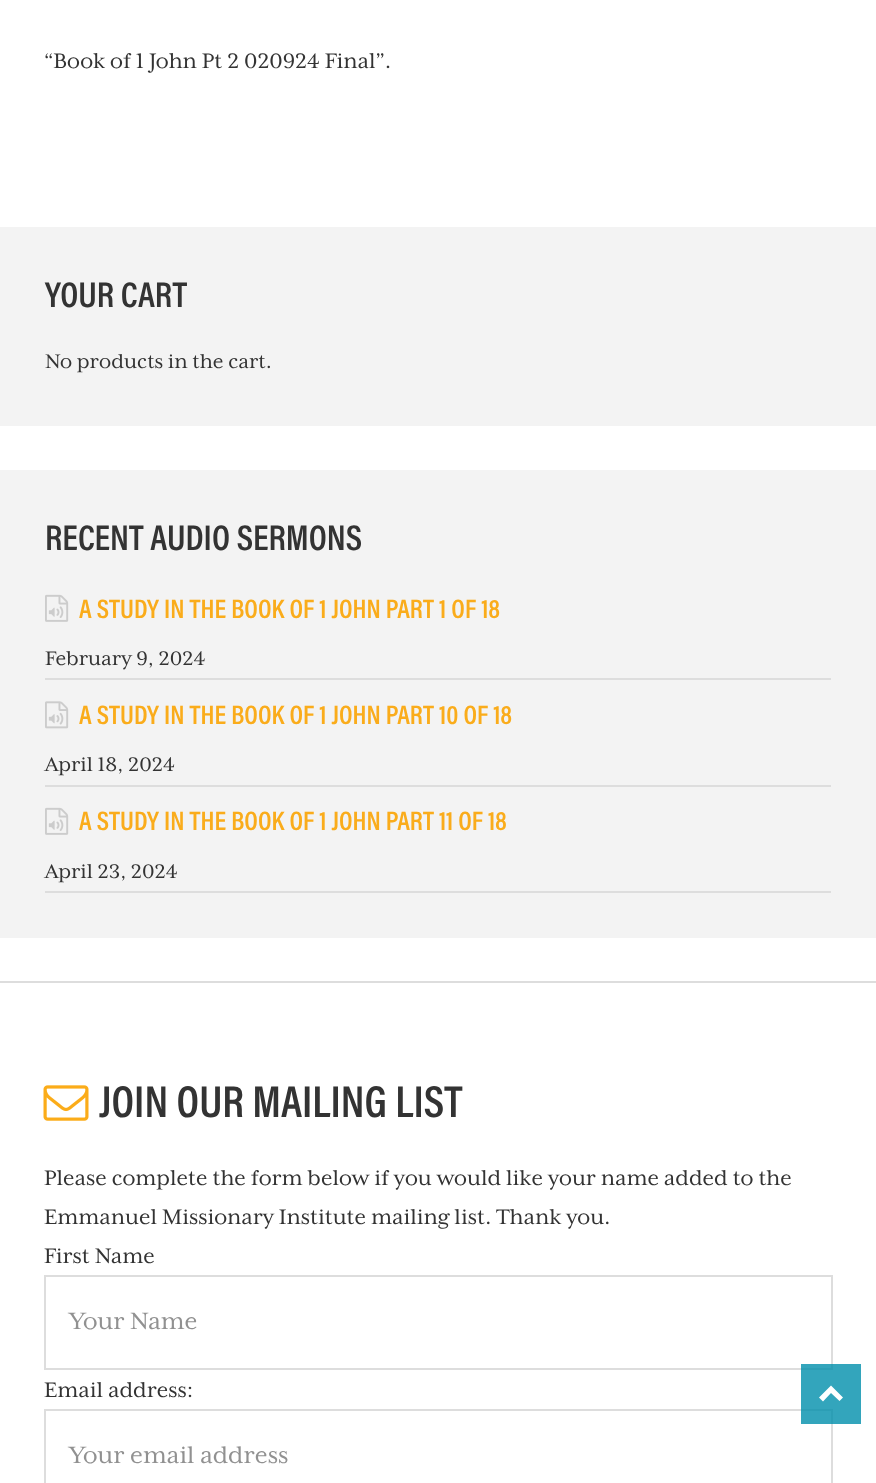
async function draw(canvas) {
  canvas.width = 876;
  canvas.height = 1483;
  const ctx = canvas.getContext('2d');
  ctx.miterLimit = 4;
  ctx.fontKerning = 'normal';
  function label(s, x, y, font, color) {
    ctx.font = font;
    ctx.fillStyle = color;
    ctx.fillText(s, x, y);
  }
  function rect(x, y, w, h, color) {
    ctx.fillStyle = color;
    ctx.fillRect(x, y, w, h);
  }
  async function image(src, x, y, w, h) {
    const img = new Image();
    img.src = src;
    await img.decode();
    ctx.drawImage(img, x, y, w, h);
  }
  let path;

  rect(0, 0, 876, 1483, '#fff');
  label('“Book of 1 John Pt 2 020924 Final”.', 44, 68, '24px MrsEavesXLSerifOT', '#333');
  rect(0, 227, 876, 199, '#f3f3f3');
  label('YOUR CART', 45, 307, '600 36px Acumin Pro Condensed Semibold', '#333');
  label('No products in the cart.', 45, 368, '22.5px MrsEavesXLSerifOT', '#333');
  rect(0, 470, 876, 468, '#f3f3f3');
  label('RECENT AUDIO SERMONS', 45, 550, '600 36px Acumin Pro Condensed Semibold', '#333');
  rect(45, 678, 786, 2, '#ddd');
  await image('assets/img1.png', 45, 594, 24, 28);
  label('A STUDY IN THE BOOK OF 1 JOHN PART 1 OF 18', 79, 618, '600 27px Acumin Pro Condensed Semibold', '#faac1b');
  label('February 9, 2024', 45, 665, '22.5px MrsEavesXLSerifOT', '#333');
  rect(45, 785, 786, 2, '#ddd');
  await image('assets/img2.png', 45, 701, 24, 28);
  label('A STUDY IN THE BOOK OF 1 JOHN PART 10 OF 18', 79, 724, '600 27px Acumin Pro Condensed Semibold', '#faac1b');
  label('April 18, 2024', 45, 771, '22.5px MrsEavesXLSerifOT', '#333');
  rect(45, 891, 786, 2, '#ddd');
  await image('assets/img1.png', 45, 807, 24, 28);
  label('A STUDY IN THE BOOK OF 1 JOHN PART 11 OF 18', 79, 830, '600 27px Acumin Pro Condensed Semibold', '#faac1b');
  label('April 23, 2024', 45, 878, '22.5px MrsEavesXLSerifOT', '#333');
  rect(0, 981, 876, 2, '#ddd');
  await image('assets/img3.png', 43, 1085, 46, 36);
  label('JOIN OUR MAILING LIST', 99, 1117, '600 45px Acumin Pro Condensed Semibold', '#333');
  label('Please complete the form below if you would like your name added to the', 44, 1185, '24px MrsEavesXLSerifOT', '#333');
  label('Emmanuel Missionary Institute mailing list. Thank you.', 44, 1224, '24px MrsEavesXLSerifOT', '#333');
  label('First Name', 44, 1263, '24px MrsEavesXLSerifOT', '#333');
  ctx.strokeStyle = '#ddd';
  ctx.lineWidth = 2;
  ctx.strokeRect(45, 1276, 787, 93);
  label('Your Name', 69, 1329, '27px MrsEavesXLSerifOT', '#919191');
  label('Email address:', 44, 1397, '24px MrsEavesXLSerifOT', '#333');
  ctx.strokeRect(45, 1410, 787, 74);
  label('Your email address', 69, 1463, '27px MrsEavesXLSerifOT', '#919191');
  rect(801, 1364, 60, 60, '#008eabcc');
  ctx.fillStyle = '#fff';
  path = new Path2D('M831 1385.5L843 1397.5L839.5 1401L831 1393L823 1401.5L819 1397.5Z');
  ctx.fill(path);
}

draw(document.querySelector('canvas'));
